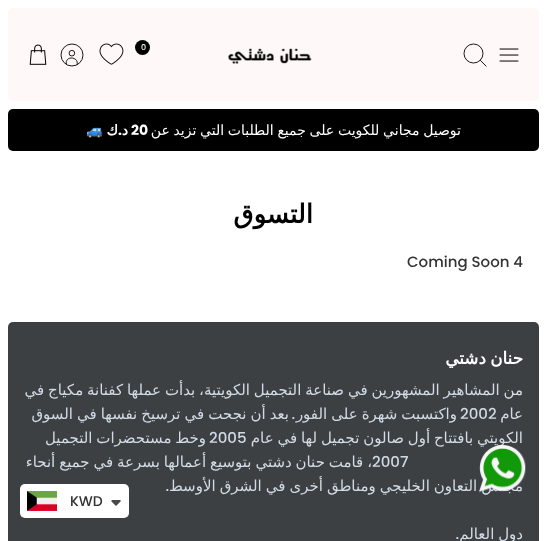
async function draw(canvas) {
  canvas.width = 547;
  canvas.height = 541;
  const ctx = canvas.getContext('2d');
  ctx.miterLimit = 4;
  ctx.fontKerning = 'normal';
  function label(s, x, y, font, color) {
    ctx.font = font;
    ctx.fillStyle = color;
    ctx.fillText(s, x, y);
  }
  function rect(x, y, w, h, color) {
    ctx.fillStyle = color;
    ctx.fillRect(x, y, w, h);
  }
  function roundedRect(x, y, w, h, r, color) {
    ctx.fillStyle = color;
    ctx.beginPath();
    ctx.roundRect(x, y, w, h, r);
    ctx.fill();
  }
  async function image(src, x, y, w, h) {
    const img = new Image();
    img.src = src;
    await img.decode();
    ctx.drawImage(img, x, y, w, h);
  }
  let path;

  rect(0, 0, 547, 541, '#fff');
  roundedRect(8, 8, 531, 93, 5, '#fff8f9');
  await image('assets/img1.png', 499, 48, 20, 14);
  ctx.beginPath();
  ctx.arc(473.5, 53.5, 9.5, 0, 2 * Math.PI);
  ctx.strokeStyle = '#000';
  ctx.lineWidth = 0.9;
  ctx.stroke();
  path = new Path2D('M480.5 60.5L486 66');
  ctx.lineCap = 'square';
  ctx.stroke(path);
  ctx.fillStyle = '#000';
  ctx.beginPath();
  ctx.arc(142.5, 47.5, 7.5, 0, 2 * Math.PI);
  ctx.fill();
  label('0', 141, 50, '500 8px Poppins', '#fff');
  await image('assets/img2.png', 99, 43, 25, 22);
  path = new Path2D('M77 65C79.5 56 64 55.5 66.5 64.5');
  ctx.lineCap = 'butt';
  ctx.stroke(path);
  ctx.beginPath();
  ctx.arc(71.9, 53.2, 2.8, 0, 2 * Math.PI);
  ctx.stroke();
  ctx.beginPath();
  ctx.arc(72, 55, 11, 0, 2 * Math.PI);
  ctx.stroke();
  await image('assets/img3.png', 29, 44, 18, 21);
  await image('assets/img4.png', 228, 48, 84, 16);
  roundedRect(8, 109, 531, 42, 5, '#000');
  ctx.wordSpacing = '-0.75px';
  ctx.direction = 'rtl';
  label('توصيل مجاني للكويت على جميع الطلبات التي تزيد عن', 461, 135, '14px DejaVu Sans', '#fff');
  ctx.wordSpacing = '0px';
  ctx.direction = 'ltr';
  label('20', 131, 135, 'bold 14px Poppins', '#fff');
  ctx.direction = 'rtl';
  label('د', 128, 135, 'bold 14px DejaVu Sans', '#fff');
  label('.', 122, 135, 'bold 14px Poppins', '#fff');
  label('ك', 118, 135, 'bold 14px DejaVu Sans', '#fff');
  ctx.direction = 'ltr';
  label('🚙', 86, 135, '14px Noto Color Emoji', '#fff');
  ctx.direction = 'rtl';
  label('التسوق', 313, 223, 'bold 26px DejaVu Sans', '#000');
  ctx.direction = 'ltr';
  label('Coming Soon 4', 407, 267, '500 15px Poppins', '#333');
  roundedRect(8, 322, 531, 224, 5, '#3c4043');
  ctx.wordSpacing = '-1px';
  ctx.direction = 'rtl';
  label('حنان دشتي', 523, 364, 'bold 16.75px DejaVu Sans', '#fff');
  ctx.wordSpacing = '-0.9px';
  label('من المشاهير المشهورين في صناعة التجميل الكويتية، بدأت عملها كفنانة مكياج في', 523, 395, '15px DejaVu Sans', '#d2dbe5');
  ctx.wordSpacing = '0px';
  label('عام', 523, 419, '15px DejaVu Sans', '#d2dbe5');
  ctx.direction = 'ltr';
  label('2002', 460, 419, '500 15px Poppins', '#d2dbe5');
  ctx.wordSpacing = '-0.75px';
  ctx.direction = 'rtl';
  label('بعد أن نجحت في ترسيخ نفسها في السوق', 289, 419, '15px DejaVu Sans', '#d2dbe5');
  ctx.wordSpacing = '0px';
  label('.', 295, 419, '500 15px Poppins', '#d2dbe5');
  ctx.wordSpacing = '-0.75px';
  label('واكتسبت شهرة على الفور', 457, 419, '15px DejaVu Sans', '#d2dbe5');
  ctx.wordSpacing = '-0.9px';
  label('الكويتي بافتتاح أول صالون تجميل لها في عام', 523, 443, '15px DejaVu Sans', '#d2dbe5');
  ctx.wordSpacing = '0px';
  ctx.direction = 'ltr';
  label('2005', 209, 443, '500 15px Poppins', '#d2dbe5');
  ctx.wordSpacing = '-1px';
  ctx.direction = 'rtl';
  label('وخط مستحضرات التجميل', 206, 443, '15px DejaVu Sans', '#d2dbe5');
  ctx.wordSpacing = '-0.9px';
  label('، قامت حنان دشتي بتوسيع أعمالها بسرعة في جميع أنحاء', 372, 467, '15px DejaVu Sans', '#d2dbe5');
  ctx.wordSpacing = '0px';
  ctx.direction = 'ltr';
  label('2007', 372, 467, '500 15px Poppins', '#d2dbe5');
  ctx.wordSpacing = '-0.75px';
  ctx.direction = 'rtl';
  label('مجلس التعاون الخليجي ومناطق أخرى في الشرق الأوسط', 523, 491, '15px DejaVu Sans', '#d2dbe5');
  ctx.wordSpacing = '0px';
  label('.', 169, 491, '500 15px Poppins', '#d2dbe5');
  ctx.wordSpacing = '-0.9px';
  label('دول العالم', 523, 539, '15px DejaVu Sans', '#d2dbe5');
  ctx.wordSpacing = '0px';
  label('.', 459, 539, '500 15px Poppins', '#d2dbe5');
  await image('assets/img5.png', 479, 444, 47, 49);
  roundedRect(20, 484, 109, 34, 5, '#fff');
  ctx.fillStyle = '#474942';
  path = new Path2D('M113 500C112 500 111.5 500.5 111 501L116 506L121 501L120 500Z');
  ctx.fill(path);
  ctx.direction = 'ltr';
  label('KWD', 70, 506, '500 14px Poppins', '#333');
  await image('assets/img6.png', 27, 491, 30, 20);
}

draw(document.querySelector('canvas'));
